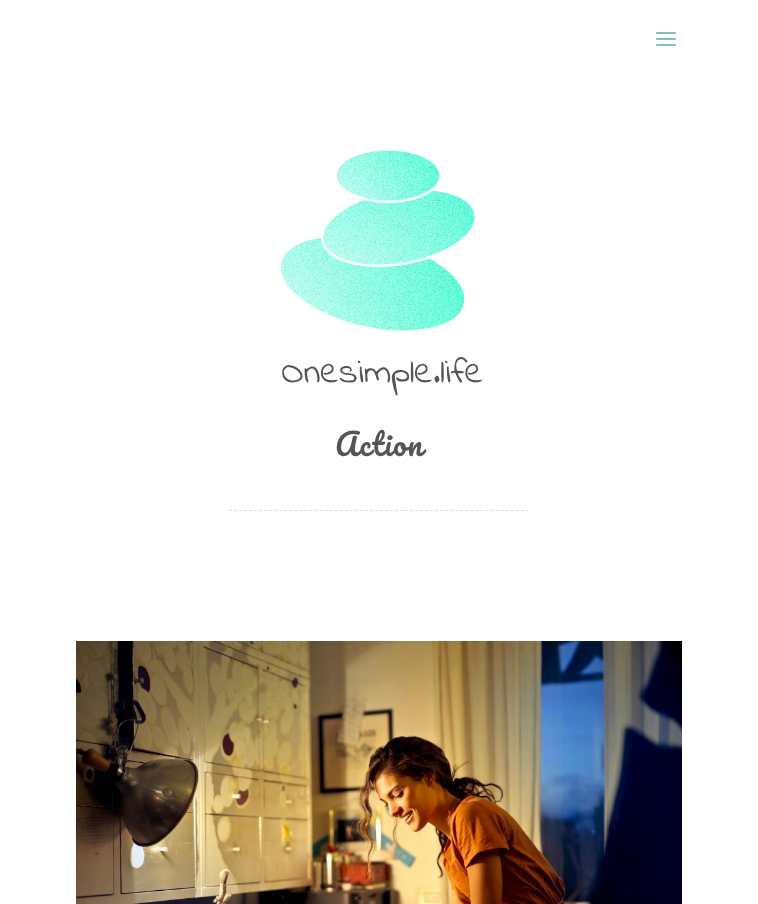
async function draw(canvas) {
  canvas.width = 758;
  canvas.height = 904;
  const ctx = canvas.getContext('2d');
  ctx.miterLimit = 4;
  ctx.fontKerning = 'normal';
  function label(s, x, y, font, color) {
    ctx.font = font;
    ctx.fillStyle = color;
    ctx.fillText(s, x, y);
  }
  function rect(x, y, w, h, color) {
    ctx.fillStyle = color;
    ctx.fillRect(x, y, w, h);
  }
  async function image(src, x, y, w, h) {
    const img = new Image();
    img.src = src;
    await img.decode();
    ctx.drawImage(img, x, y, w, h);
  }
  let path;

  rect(0, 0, 758, 904, '#fff');
  await image('assets/img1.png', 656, 32, 20, 14);
  await image('assets/img2.png', 281, 150, 202, 246);
  ctx.letterSpacing = '1px';
  label('Action', 335, 456, '30px Pacifico', '#555');
  path = new Path2D('M229 510.5H529');
  ctx.strokeStyle = '#ddd';
  ctx.setLineDash([3, 2.03]);
  ctx.stroke(path);
  await image('assets/img3.png', 76, 641, 606, 263);
}

draw(document.querySelector('canvas'));
